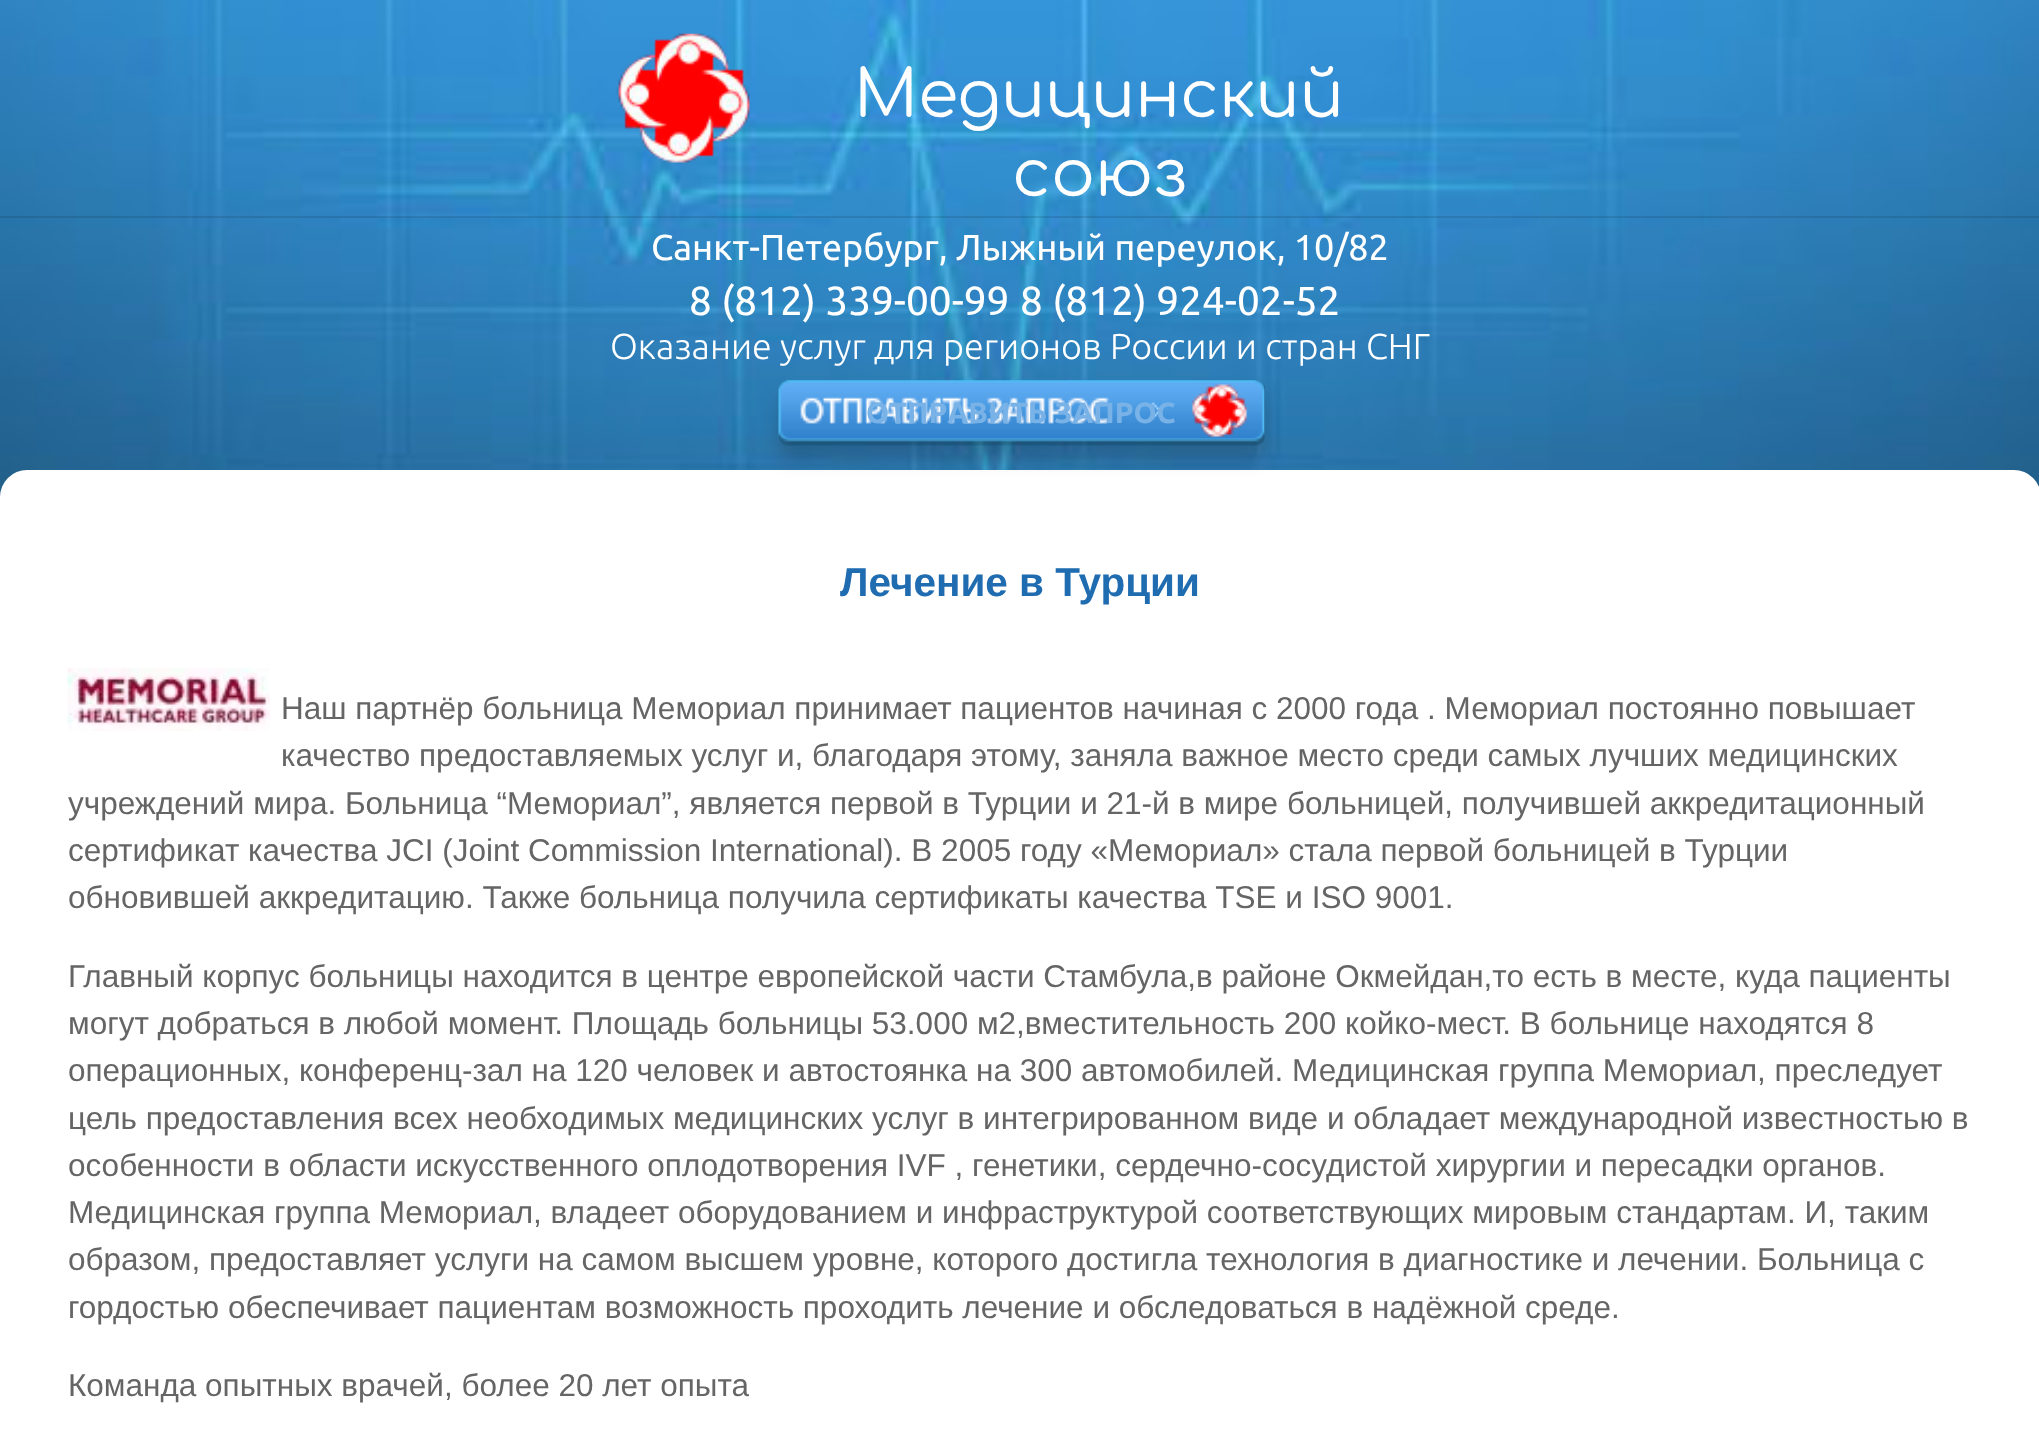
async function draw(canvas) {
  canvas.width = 2039;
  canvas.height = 1451;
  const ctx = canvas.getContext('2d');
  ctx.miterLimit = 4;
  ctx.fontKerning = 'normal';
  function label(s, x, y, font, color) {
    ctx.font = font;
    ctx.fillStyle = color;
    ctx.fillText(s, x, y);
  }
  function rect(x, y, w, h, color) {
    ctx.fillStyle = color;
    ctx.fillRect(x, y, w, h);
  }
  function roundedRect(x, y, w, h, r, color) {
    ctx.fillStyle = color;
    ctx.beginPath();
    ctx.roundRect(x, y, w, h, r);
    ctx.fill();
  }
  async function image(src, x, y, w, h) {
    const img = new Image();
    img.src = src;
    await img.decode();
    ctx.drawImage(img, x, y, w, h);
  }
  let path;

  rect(0, 0, 2039, 1451, '#fff');
  await image('assets/img1.png', 0, 0, 2039, 497);
  await image('assets/img2.png', 616, 33, 135, 131);
  label('Медицинский', 854, 117, '65.25px Comfortaa', '#fff');
  label('союз', 1012, 196, '65.25px Comfortaa', '#fff');
  rect(0, 216, 2039, 2, '#0000001a');
  label('Санкт-Петербург, Лыжный переулок, 10/82', 651, 260, '36px Ubuntu', '#fff');
  label('8 (812) 339-00-99', 689, 315, '40.5px Ubuntu', '#fff');
  label('8 (812) 924-02-52', 1020, 315, '40.5px Ubuntu', '#fff');
  label('Оказание услуг для регионов России и стран СНГ', 610, 359, '300 36px Ubuntu', '#fff');
  roundedRect(0, 470, 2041, 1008, 27, '#fff');
  ctx.save();
  path = new Path2D('M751 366H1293V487H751ZM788 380H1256C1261 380 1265 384 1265 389V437C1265 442 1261 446 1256 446H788C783 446 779 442 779 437V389C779 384 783 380 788 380Z');
  ctx.clip(path, 'evenodd');
  ctx.fillStyle = '#1f0c1033';
  ctx.filter = 'blur(9px)';
  ctx.beginPath();
  ctx.roundRect(779, 394, 486, 65, 9);
  ctx.fill();
  ctx.filter = 'none';
  ctx.restore();
  await image('assets/img3.png', 778, 380, 487, 66);
  ctx.fillStyle = '#00000029';
  path = new Path2D('M779 434V437C779 442 783 446 788 446H1256C1261 446 1265 442 1265 437V389C1265 388 1265 386 1264 385V430C1264 435 1260 439 1256 439H788C784 439 781 437 779 434Z');
  ctx.fill(path);
  label('ОТПРАВИТЬ ЗАПРОС', 866, 423, 'bold 29.25px Ubuntu', '#78b2e7');
  label('Лечение в Турции', 840, 596, 'bold 40.5px Liberation Sans', '#206cb0');
  await image('assets/img4.png', 67, 668, 203, 63);
  label('Наш партнёр больница Мемориал принимает пациентов начиная с 2000 года . Мемориал постоянно повышает', 281, 719, '31.5px Liberation Sans', '#656565');
  label('качество предоставляемых услуг и, благодаря этому, заняла важное место среди самых лучших медицинских', 281, 766, '31.5px Liberation Sans', '#656565');
  label('учреждений мира. Больница “Мемориал”, является первой в Турции и 21-й в мире больницей, получившей аккредитационный', 68, 814, '31.5px Liberation Sans', '#656565');
  label('сертификат качества JCI (Joint Commission International). В 2005 году «Мемориал» стала первой больницей в Турции', 68, 861, '31.5px Liberation Sans', '#656565');
  label('обновившей аккредитацию. Также больница получила сертификаты качества ТSE и ISO 9001.', 68, 908, '31.5px Liberation Sans', '#656565');
  label('Главный корпус больницы находится в центре европейской части Стамбула,в районе Окмейдан,то есть в месте, куда пациенты', 68, 987, '31.5px Liberation Sans', '#656565');
  label('могут добраться в любой момент. Площадь больницы 53.000 м2,вместительность 200 койко-мест. В больнице находятся 8', 68, 1034, '31.5px Liberation Sans', '#656565');
  label('операционных, конференц-зал на 120 человек и автостоянка на 300 автомобилей. Медицинская группа Мемориал, преследует', 68, 1081, '31.5px Liberation Sans', '#656565');
  label('цель предоставления всех необходимых медицинских услуг в интегрированном виде и обладает международной известностью в', 68, 1129, '31.5px Liberation Sans', '#656565');
  label('особенности в области искусственного оплодотворения IVF , генетики, сердечно-сосудистой хирургии и пересадки органов.', 68, 1176, '31.5px Liberation Sans', '#656565');
  label('Медицинская группа Мемориал, владеет оборудованием и инфраструктурой соответствующих мировым стандартам. И, таким', 68, 1223, '31.5px Liberation Sans', '#656565');
  label('образом, предоставляет услуги на самом высшем уровне, которого достигла технология в диагностике и лечении. Больница с', 68, 1270, '31.5px Liberation Sans', '#656565');
  label('гордостью обеспечивает пациентам возможность проходить лечение и обследоваться в надёжной среде.', 68, 1318, '31.5px Liberation Sans', '#656565');
  label('Команда опытных врачей, более 20 лет опыта', 68, 1396, '31.5px Liberation Sans', '#656565');
}

draw(document.querySelector('canvas'));
